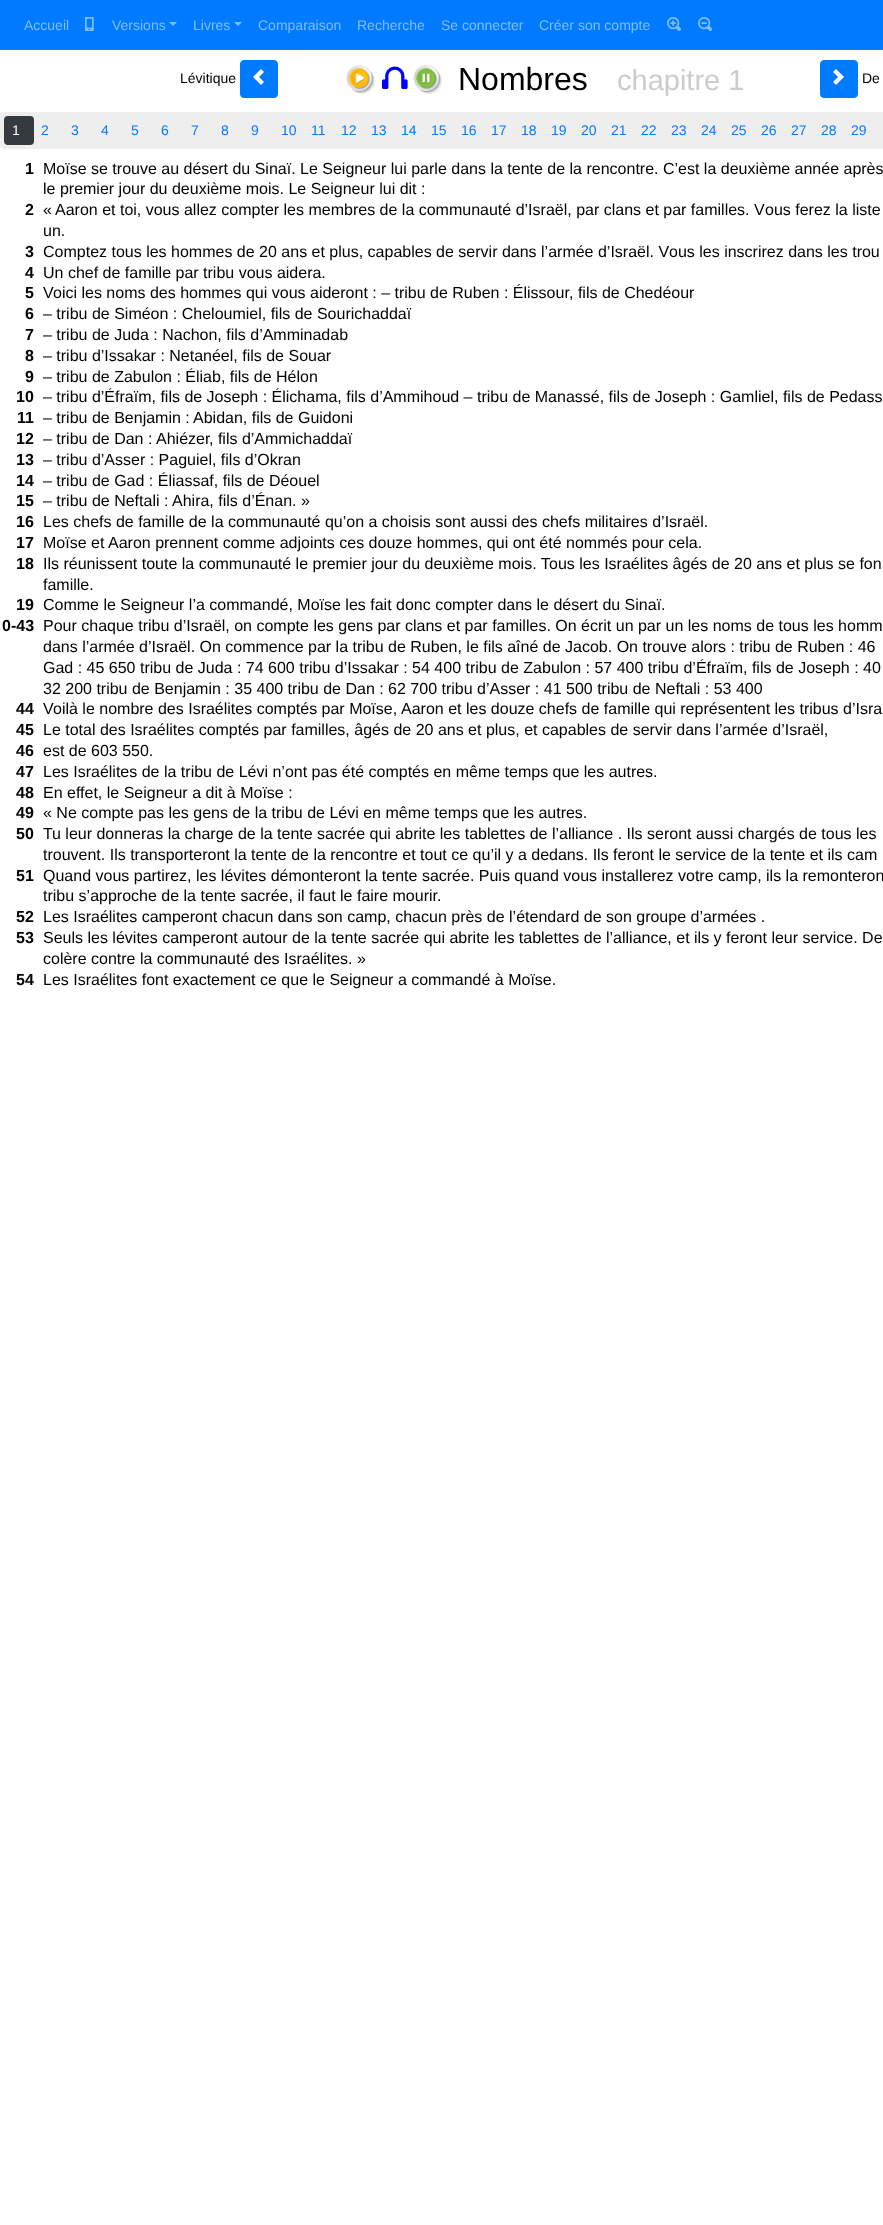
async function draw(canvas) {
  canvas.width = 883;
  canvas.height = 2225;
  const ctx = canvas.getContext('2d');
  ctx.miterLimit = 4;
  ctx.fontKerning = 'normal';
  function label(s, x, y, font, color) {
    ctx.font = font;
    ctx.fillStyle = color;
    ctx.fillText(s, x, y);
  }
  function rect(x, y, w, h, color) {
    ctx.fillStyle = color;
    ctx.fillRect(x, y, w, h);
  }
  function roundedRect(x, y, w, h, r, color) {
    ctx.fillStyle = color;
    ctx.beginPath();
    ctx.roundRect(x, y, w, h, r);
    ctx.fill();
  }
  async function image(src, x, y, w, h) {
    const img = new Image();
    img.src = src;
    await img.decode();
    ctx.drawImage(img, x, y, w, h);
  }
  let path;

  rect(0, 0, 883, 2225, '#fff');
  rect(0, 0, 883, 50, '#007bff');
  label('Accueil', 24, 30, '14px Liberation Sans', '#80bdff');
  await image('assets/img1.png', 85, 17, 9, 14);
  label('Versions', 112, 30, '14px Liberation Sans', '#80bdff');
  path = new Path2D('M169 22H177L173 26Z');
  ctx.fill(path);
  label('Livres', 193, 30, '14px Liberation Sans', '#80bdff');
  path = new Path2D('M234 22H242L238 26Z');
  ctx.fill(path);
  label('Comparaison', 258, 30, '14px Liberation Sans', '#80bdff');
  label('Recherche', 357, 30, '14px Liberation Sans', '#80bdff');
  label('Se connecter', 441, 30, '14px Liberation Sans', '#80bdff');
  label('Créer son compte', 539, 30, '14px Liberation Sans', '#80bdff');
  await image('assets/img2.png', 667, 17, 14, 14);
  await image('assets/img3.png', 698, 17, 14, 14);
  label('Lévitique', 180, 83, '14px Liberation Sans', '#000');
  ctx.fillStyle = '#007bff';
  ctx.beginPath();
  ctx.roundRect(240.5, 60.5, 37, 37, 3.5);
  ctx.fill();
  ctx.strokeStyle = '#007bff';
  ctx.stroke();
  await image('assets/img4.png', 253, 69, 11, 16);
  await image('assets/img5.png', 346, 65, 29, 29);
  await image('assets/img6.png', 382, 66, 26, 23);
  await image('assets/img7.png', 413, 65, 29, 29);
  label('Nombres', 458, 90, '32px Liberation Sans', '#000');
  label('chapitre 1', 617, 90, '29px Liberation Sans', '#ccc');
  ctx.fillStyle = '#007bff';
  ctx.beginPath();
  ctx.roundRect(820.5, 60.5, 37, 37, 3.5);
  ctx.fill();
  ctx.stroke();
  await image('assets/img8.png', 833, 69, 11, 16);
  label('De', 862, 83, '14px Liberation Sans', '#000');
  roundedRect(0, 112, 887, 37, 4, '#eee');
  roundedRect(4, 116, 30, 29, 4, '#343a40');
  label('1', 12, 135, '14px Liberation Sans', '#fff');
  label('2', 41, 135, '14px Liberation Sans', '#007bff');
  label('3', 71, 135, '14px Liberation Sans', '#007bff');
  label('4', 101, 135, '14px Liberation Sans', '#007bff');
  label('5', 131, 135, '14px Liberation Sans', '#007bff');
  label('6', 161, 135, '14px Liberation Sans', '#007bff');
  label('7', 191, 135, '14px Liberation Sans', '#007bff');
  label('8', 221, 135, '14px Liberation Sans', '#007bff');
  label('9', 251, 135, '14px Liberation Sans', '#007bff');
  label('10', 281, 135, '14px Liberation Sans', '#007bff');
  label('11', 311, 135, '14px Liberation Sans', '#007bff');
  label('12', 341, 135, '14px Liberation Sans', '#007bff');
  label('13', 371, 135, '14px Liberation Sans', '#007bff');
  label('14', 401, 135, '14px Liberation Sans', '#007bff');
  label('15', 431, 135, '14px Liberation Sans', '#007bff');
  label('16', 461, 135, '14px Liberation Sans', '#007bff');
  label('17', 491, 135, '14px Liberation Sans', '#007bff');
  label('18', 521, 135, '14px Liberation Sans', '#007bff');
  label('19', 551, 135, '14px Liberation Sans', '#007bff');
  label('20', 581, 135, '14px Liberation Sans', '#007bff');
  label('21', 611, 135, '14px Liberation Sans', '#007bff');
  label('22', 641, 135, '14px Liberation Sans', '#007bff');
  label('23', 671, 135, '14px Liberation Sans', '#007bff');
  label('24', 701, 135, '14px Liberation Sans', '#007bff');
  label('25', 731, 135, '14px Liberation Sans', '#007bff');
  label('26', 761, 135, '14px Liberation Sans', '#007bff');
  label('27', 791, 135, '14px Liberation Sans', '#007bff');
  label('28', 821, 135, '14px Liberation Sans', '#007bff');
  label('29', 851, 135, '14px Liberation Sans', '#007bff');
  label('1', 25, 174, 'bold 16px Liberation Sans', '#000');
  label('Moïse se trouve au désert du Sinaï. Le Seigneur lui parle dans la tente de la rencontre. C’est la deuxième année après', 43, 174, '16px Liberation Sans', '#000');
  label('le premier jour du deuxième mois. Le Seigneur lui dit :', 43, 194, '16px Liberation Sans', '#000');
  label('2', 25, 215, 'bold 16px Liberation Sans', '#000');
  label('«', 43, 215, '16px Liberation Sans', '#000');
  label('Aaron et toi, vous allez compter les membres de la communauté d’Israël, par clans et par familles. V', 55, 215, '16px Liberation Sans', '#000');
  label('ous ferez la liste', 765, 215, '16px Liberation Sans', '#000');
  label('un.', 43, 236, '16px Liberation Sans', '#000');
  label('3', 25, 257, 'bold 16px Liberation Sans', '#000');
  label('Comptez tous les hommes de 20 ans et plus, capables de servir dans l’armée d’Israël. V', 43, 257, '16px Liberation Sans', '#000');
  label('ous les inscrirez dans les trou', 669, 257, '16px Liberation Sans', '#000');
  label('4', 25, 278, 'bold 16px Liberation Sans', '#000');
  label('Un chef de famille par tribu vous aidera.', 43, 278, '16px Liberation Sans', '#000');
  label('5', 25, 298, 'bold 16px Liberation Sans', '#000');
  label('V', 43, 298, '16px Liberation Sans', '#000');
  label('oici les noms des hommes qui vous aideront : – tribu de Ruben : Élissour', 53, 298, '16px Liberation Sans', '#000');
  label(', fils de Chedéour', 569, 298, '16px Liberation Sans', '#000');
  label('6', 25, 319, 'bold 16px Liberation Sans', '#000');
  label('– tribu de Siméon : Cheloumiel, fils de Sourichaddaï', 43, 319, '16px Liberation Sans', '#000');
  label('7', 25, 340, 'bold 16px Liberation Sans', '#000');
  label('– tribu de Juda : Nachon, fils d’Amminadab', 43, 340, '16px Liberation Sans', '#000');
  label('8', 25, 361, 'bold 16px Liberation Sans', '#000');
  label('– tribu d’Issakar : Netanéel, fils de Souar', 43, 361, '16px Liberation Sans', '#000');
  label('9', 25, 382, 'bold 16px Liberation Sans', '#000');
  label('– tribu de Zabulon : Éliab, fils de Hélon', 43, 382, '16px Liberation Sans', '#000');
  label('10', 16, 402, 'bold 16px Liberation Sans', '#000');
  label('– tribu d’Éfraïm, fils de Joseph : Élichama, fils d’Ammihoud – tribu de Manassé, fils de Joseph : Gamliel, fils de Pedass', 43, 402, '16px Liberation Sans', '#000');
  label('11', 17, 423, 'bold 16px Liberation Sans', '#000');
  label('– tribu de Benjamin :', 43, 423, '16px Liberation Sans', '#000');
  label('Abidan, fils de Guidoni', 193, 423, '16px Liberation Sans', '#000');
  label('12', 16, 444, 'bold 16px Liberation Sans', '#000');
  label('– tribu de Dan :', 43, 444, '16px Liberation Sans', '#000');
  label('Ahiézer', 156, 444, '16px Liberation Sans', '#000');
  label(', fils d’Ammichaddaï', 209, 444, '16px Liberation Sans', '#000');
  label('13', 16, 465, 'bold 16px Liberation Sans', '#000');
  label('– tribu d’Asser : Paguiel, fils d’Okran', 43, 465, '16px Liberation Sans', '#000');
  label('14', 16, 486, 'bold 16px Liberation Sans', '#000');
  label('– tribu de Gad : Éliassaf, fils de Déouel', 43, 486, '16px Liberation Sans', '#000');
  label('15', 16, 506, 'bold 16px Liberation Sans', '#000');
  label('– tribu de Neftali :', 43, 506, '16px Liberation Sans', '#000');
  label('Ahira, fils d’Énan. »', 172, 506, '16px Liberation Sans', '#000');
  label('16', 16, 527, 'bold 16px Liberation Sans', '#000');
  label('Les chefs de famille de la communauté qu’on a choisis sont aussi des chefs militaires d’Israël.', 43, 527, '16px Liberation Sans', '#000');
  label('17', 16, 548, 'bold 16px Liberation Sans', '#000');
  label('Moïse et', 43, 548, '16px Liberation Sans', '#000');
  label('Aaron prennent comme adjoints ces douze hommes, qui ont été nommés pour cela.', 108, 548, '16px Liberation Sans', '#000');
  label('18', 16, 569, 'bold 16px Liberation Sans', '#000');
  label('Ils réunissent toute la communauté le premier jour du deuxième mois. T', 43, 569, '16px Liberation Sans', '#000');
  label('ous les Israélites âgés de 20 ans et plus se fon', 549, 569, '16px Liberation Sans', '#000');
  label('famille.', 43, 590, '16px Liberation Sans', '#000');
  label('19', 16, 610, 'bold 16px Liberation Sans', '#000');
  label('Comme le Seigneur l’a commandé, Moïse les fait donc compter dans le désert du Sinaï.', 43, 610, '16px Liberation Sans', '#000');
  label('0-43', 2, 631, 'bold 16px Liberation Sans', '#000');
  label('Pour chaque tribu d’Israël, on compte les gens par clans et par familles. On écrit un par un les noms de tous les homm', 43, 631, '16px Liberation Sans', '#000');
  label('dans l’armée d’Israël. On commence par la tribu de Ruben, le fils aîné de Jacob. On trouve alors : tribu de Ruben : 46', 43, 652, '16px Liberation Sans', '#000');
  label('Gad : 45 650 tribu de Juda : 74 600 tribu d’Issakar : 54 400 tribu de Zabulon : 57 400 tribu d’Éfraïm, fils de Joseph : 40', 43, 673, '16px Liberation Sans', '#000');
  label('32 200 tribu de Benjamin : 35 400 tribu de Dan : 62 700 tribu d’Asser : 41 500 tribu de Neftali : 53 400', 43, 694, '16px Liberation Sans', '#000');
  label('44', 16, 714, 'bold 16px Liberation Sans', '#000');
  label('V', 43, 714, '16px Liberation Sans', '#000');
  label('oilà le nombre des Israélites comptés par Moïse,', 53, 714, '16px Liberation Sans', '#000');
  label('Aaron et les douze chefs de famille qui représentent les tribus d’Isra', 401, 714, '16px Liberation Sans', '#000');
  label('45', 16, 735, 'bold 16px Liberation Sans', '#000');
  label('Le total des Israélites comptés par familles, âgés de 20 ans et plus, et capables de servir dans l’armée d’Israël,', 43, 735, '16px Liberation Sans', '#000');
  label('46', 16, 756, 'bold 16px Liberation Sans', '#000');
  label('est de 603 550.', 43, 756, '16px Liberation Sans', '#000');
  label('47', 16, 777, 'bold 16px Liberation Sans', '#000');
  label('Les Israélites de la tribu de Lévi n’ont pas été comptés en même temps que les autres.', 43, 777, '16px Liberation Sans', '#000');
  label('48', 16, 798, 'bold 16px Liberation Sans', '#000');
  label('En effet, le Seigneur a dit à Moïse :', 43, 798, '16px Liberation Sans', '#000');
  label('49', 16, 818, 'bold 16px Liberation Sans', '#000');
  label('« Ne compte pas les gens de la tribu de Lévi en même temps que les autres.', 43, 818, '16px Liberation Sans', '#000');
  label('50', 16, 839, 'bold 16px Liberation Sans', '#000');
  label('T', 43, 839, '16px Liberation Sans', '#000');
  label('u leur donneras la charge de la tente sacrée qui abrite les tablettes de l’alliance . Ils seront aussi chargés de tous les', 52, 839, '16px Liberation Sans', '#000');
  label('trouvent. Ils transporteront la tente de la rencontre et tout ce qu’il y a dedans. Ils feront le service de la tente et ils cam', 43, 860, '16px Liberation Sans', '#000');
  label('51', 16, 881, 'bold 16px Liberation Sans', '#000');
  label('Quand vous partirez, les lévites démonteront la tente sacrée. Puis quand vous installerez votre camp, ils la remonteron', 43, 881, '16px Liberation Sans', '#000');
  label('tribu s’approche de la tente sacrée, il faut le faire mourir', 43, 901, '16px Liberation Sans', '#000');
  label('.', 437, 901, '16px Liberation Sans', '#000');
  label('52', 16, 922, 'bold 16px Liberation Sans', '#000');
  label('Les Israélites camperont chacun dans son camp, chacun près de l’étendard de son groupe d’armées .', 43, 922, '16px Liberation Sans', '#000');
  label('53', 16, 943, 'bold 16px Liberation Sans', '#000');
  label('Seuls les lévites camperont autour de la tente sacrée qui abrite les tablettes de l’alliance, et ils y feront leur service. De', 43, 943, '16px Liberation Sans', '#000');
  label('colère contre la communauté des Israélites. »', 43, 964, '16px Liberation Sans', '#000');
  label('54', 16, 985, 'bold 16px Liberation Sans', '#000');
  label('Les Israélites font exactement ce que le Seigneur a commandé à Moïse.', 43, 985, '16px Liberation Sans', '#000');
}

draw(document.querySelector('canvas'));
